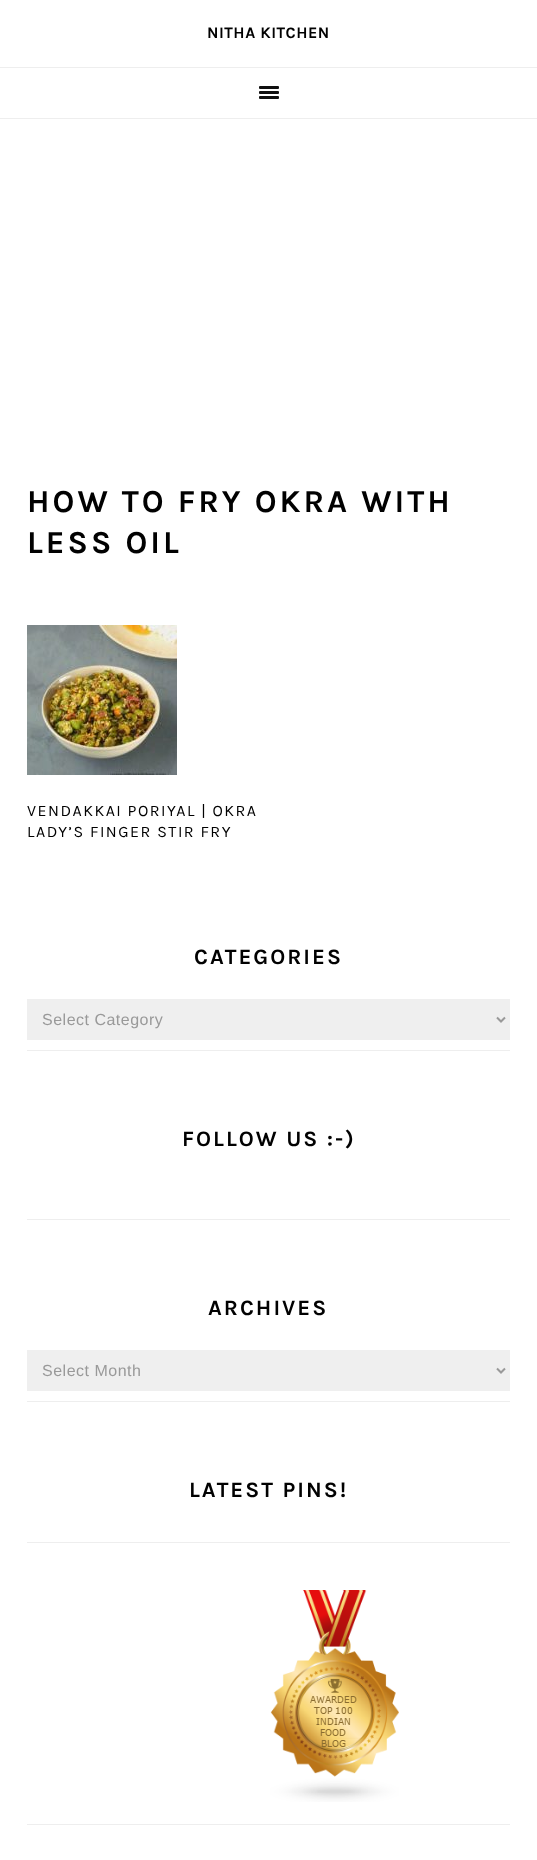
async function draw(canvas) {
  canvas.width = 537;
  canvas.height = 1860;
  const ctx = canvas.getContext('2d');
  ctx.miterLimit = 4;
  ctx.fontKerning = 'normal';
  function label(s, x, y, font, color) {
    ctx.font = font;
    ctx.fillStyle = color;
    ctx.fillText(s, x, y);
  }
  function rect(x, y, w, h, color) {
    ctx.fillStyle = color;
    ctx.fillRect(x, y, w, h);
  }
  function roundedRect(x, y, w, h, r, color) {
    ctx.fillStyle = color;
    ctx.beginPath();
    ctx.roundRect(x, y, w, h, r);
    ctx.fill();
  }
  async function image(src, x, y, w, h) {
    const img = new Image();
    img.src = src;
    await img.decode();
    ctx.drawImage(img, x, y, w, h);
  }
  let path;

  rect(0, 0, 537, 1860, '#fff');
  ctx.letterSpacing = '0.5px';
  label('NITHA KITCHEN', 207, 38, 'bold 16px Karla', '#010101');
  rect(0, 67, 537, 1, '#eee');
  rect(0, 118, 537, 1, '#eee');
  roundedRect(259, 91, 20, 3, 1, '#101010');
  roundedRect(259, 86, 20, 3, 1, '#101010');
  roundedRect(259, 96, 20, 3, 1, '#101010');
  ctx.letterSpacing = '3px';
  label('HOW TO FRY OKRA WITH', 27, 512, 'bold 32px Karla', '#010101');
  label('LESS OIL', 27, 553, 'bold 32px Karla', '#010101');
  await image('assets/img1.png', 27, 625, 150, 150);
  ctx.letterSpacing = '1.5px';
  label('VENDAKKAI PORIYAL | OKRA', 27, 816, '16px Karla', '#010101');
  label('LADY’S FINGER STIR FRY', 27, 837, '16px Karla', '#010101');
  rect(27, 1050, 483, 1, '#eee');
  ctx.letterSpacing = '2px';
  label('CATEGORIES', 194, 964, 'bold 22px Karla', '#010101');
  rect(27, 999, 483, 41, '#efefef');
  path = new Path2D('M497 1017.5L501 1021.5L505 1017.5');
  ctx.strokeStyle = '#999';
  ctx.lineWidth = 2;
  ctx.stroke(path);
  ctx.letterSpacing = '0.5px';
  label('Select Category', 42, 1025, '16px Liberation Sans', '#999');
  rect(27, 1219, 483, 1, '#eee');
  ctx.letterSpacing = '2px';
  label('FOLLOW US :-)', 182, 1146, 'bold 22px Karla', '#010101');
  rect(27, 1401, 483, 1, '#eee');
  label('ARCHIVES', 208, 1315, 'bold 22px Karla', '#010101');
  rect(27, 1350, 483, 41, '#efefef');
  path = new Path2D('M497 1368.5L501 1372.5L505 1368.5');
  ctx.stroke(path);
  ctx.letterSpacing = '0.5px';
  label('Select Month', 42, 1376, '16px Liberation Sans', '#999');
  rect(27, 1542, 483, 1, '#eee');
  ctx.letterSpacing = '2px';
  label('LATEST PINS!', 189, 1497, 'bold 22px Karla', '#010101');
  rect(27, 1824, 483, 1, '#eee');
  await image('assets/img2.png', 270, 1590, 129, 212);
}

draw(document.querySelector('canvas'));
